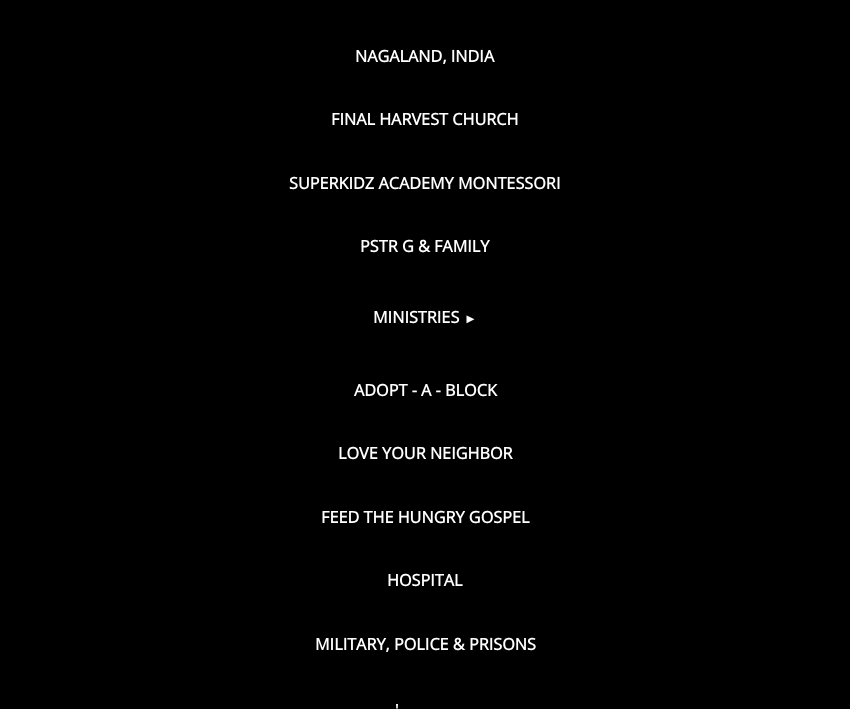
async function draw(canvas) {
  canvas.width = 850;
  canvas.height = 709;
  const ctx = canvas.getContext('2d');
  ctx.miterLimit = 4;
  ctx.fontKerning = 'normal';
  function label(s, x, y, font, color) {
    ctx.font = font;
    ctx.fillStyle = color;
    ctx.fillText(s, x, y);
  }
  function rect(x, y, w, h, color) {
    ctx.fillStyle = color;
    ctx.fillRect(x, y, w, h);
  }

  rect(0, 0, 850, 709, '#000');
  label('NAGALAND, INDIA', 355, 62, 'bold 16.25px Open Sans', '#fff');
  label('FINAL HARVEST CHURCH', 331, 125, 'bold 16.25px Open Sans', '#fff');
  label('SUPERKIDZ ACADEMY MONTESSORI', 289, 189, 'bold 16.25px Open Sans', '#fff');
  label('PSTR G & FAMILY', 360, 252, 'bold 16.25px Open Sans', '#fff');
  label('MINISTRIES', 373, 323, 'bold 16.25px Open Sans', '#fff');
  label('►', 464, 323, 'bold 13px Liberation Serif', '#fff');
  label('ADOPT - A - BLOCK', 354, 396, 'bold 16.25px Open Sans', '#fff');
  label('LOVE YOUR NEIGHBOR', 338, 459, 'bold 16.25px Open Sans', '#fff');
  label('FEED THE HUNGRY GOSPEL', 321, 523, 'bold 16.25px Open Sans', '#fff');
  label('HOSPITAL', 387, 586, 'bold 16.25px Open Sans', '#fff');
  label('MILITARY, POLICE & PRISONS', 315, 650, 'bold 16.25px Open Sans', '#fff');
  label('\'', 395, 716, 'bold 16.25px Open Sans', '#fff');
}

draw(document.querySelector('canvas'));
